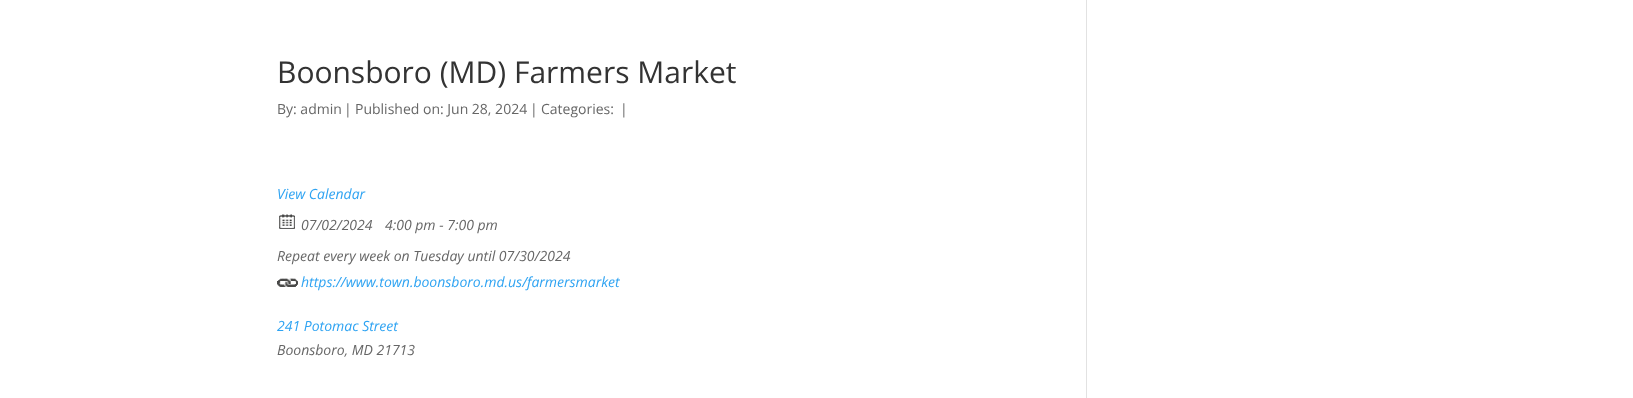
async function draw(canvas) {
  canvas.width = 1633;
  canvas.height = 398;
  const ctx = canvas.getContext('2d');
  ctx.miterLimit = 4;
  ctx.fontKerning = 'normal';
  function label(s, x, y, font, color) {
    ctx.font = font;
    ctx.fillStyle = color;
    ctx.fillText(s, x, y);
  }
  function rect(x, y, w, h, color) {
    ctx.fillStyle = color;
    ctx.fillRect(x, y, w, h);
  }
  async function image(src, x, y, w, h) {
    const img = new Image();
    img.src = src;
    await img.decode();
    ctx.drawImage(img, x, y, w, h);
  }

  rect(0, 0, 1633, 398, '#fff');
  label('Boonsboro (MD) Farmers Market', 277, 83, '30px Open Sans', '#333');
  label('By: admin', 277, 114, '14px Open Sans', '#666');
  label('|', 344, 114, '14px Open Sans', '#666');
  label('Published on: Jun 28, 2024', 355, 114, '14px Open Sans', '#666');
  label('|', 530, 114, '14px Open Sans', '#666');
  label('Categories:', 541, 114, '14px Open Sans', '#666');
  label('|', 620, 114, '14px Open Sans', '#666');
  label('View Calendar', 277, 199, 'italic 14px Open Sans', '#2ea3f2');
  await image('assets/img1.png', 279, 214, 16, 15);
  label('07/02/2024', 301, 230, 'italic 14px Open Sans', '#666');
  label('4:00 pm - 7:00 pm', 385, 230, 'italic 14px Open Sans', '#666');
  label('Repeat every week on Tuesday until 07/30/2024', 277, 261, 'italic 14px Open Sans', '#666');
  await image('assets/img2.png', 277, 278, 21, 9);
  label('https://www.town.boonsboro.md.us/farmersmarket', 301, 287, 'italic 14px Open Sans', '#2ea3f2');
  label('241 Potomac Street', 277, 331, 'italic 14px Open Sans', '#2ea3f2');
  label('Boonsboro, MD 21713', 277, 355, 'italic 14px Open Sans', '#666');
  rect(1086, 0, 1, 398, '#e2e2e2');
}

draw(document.querySelector('canvas'));
